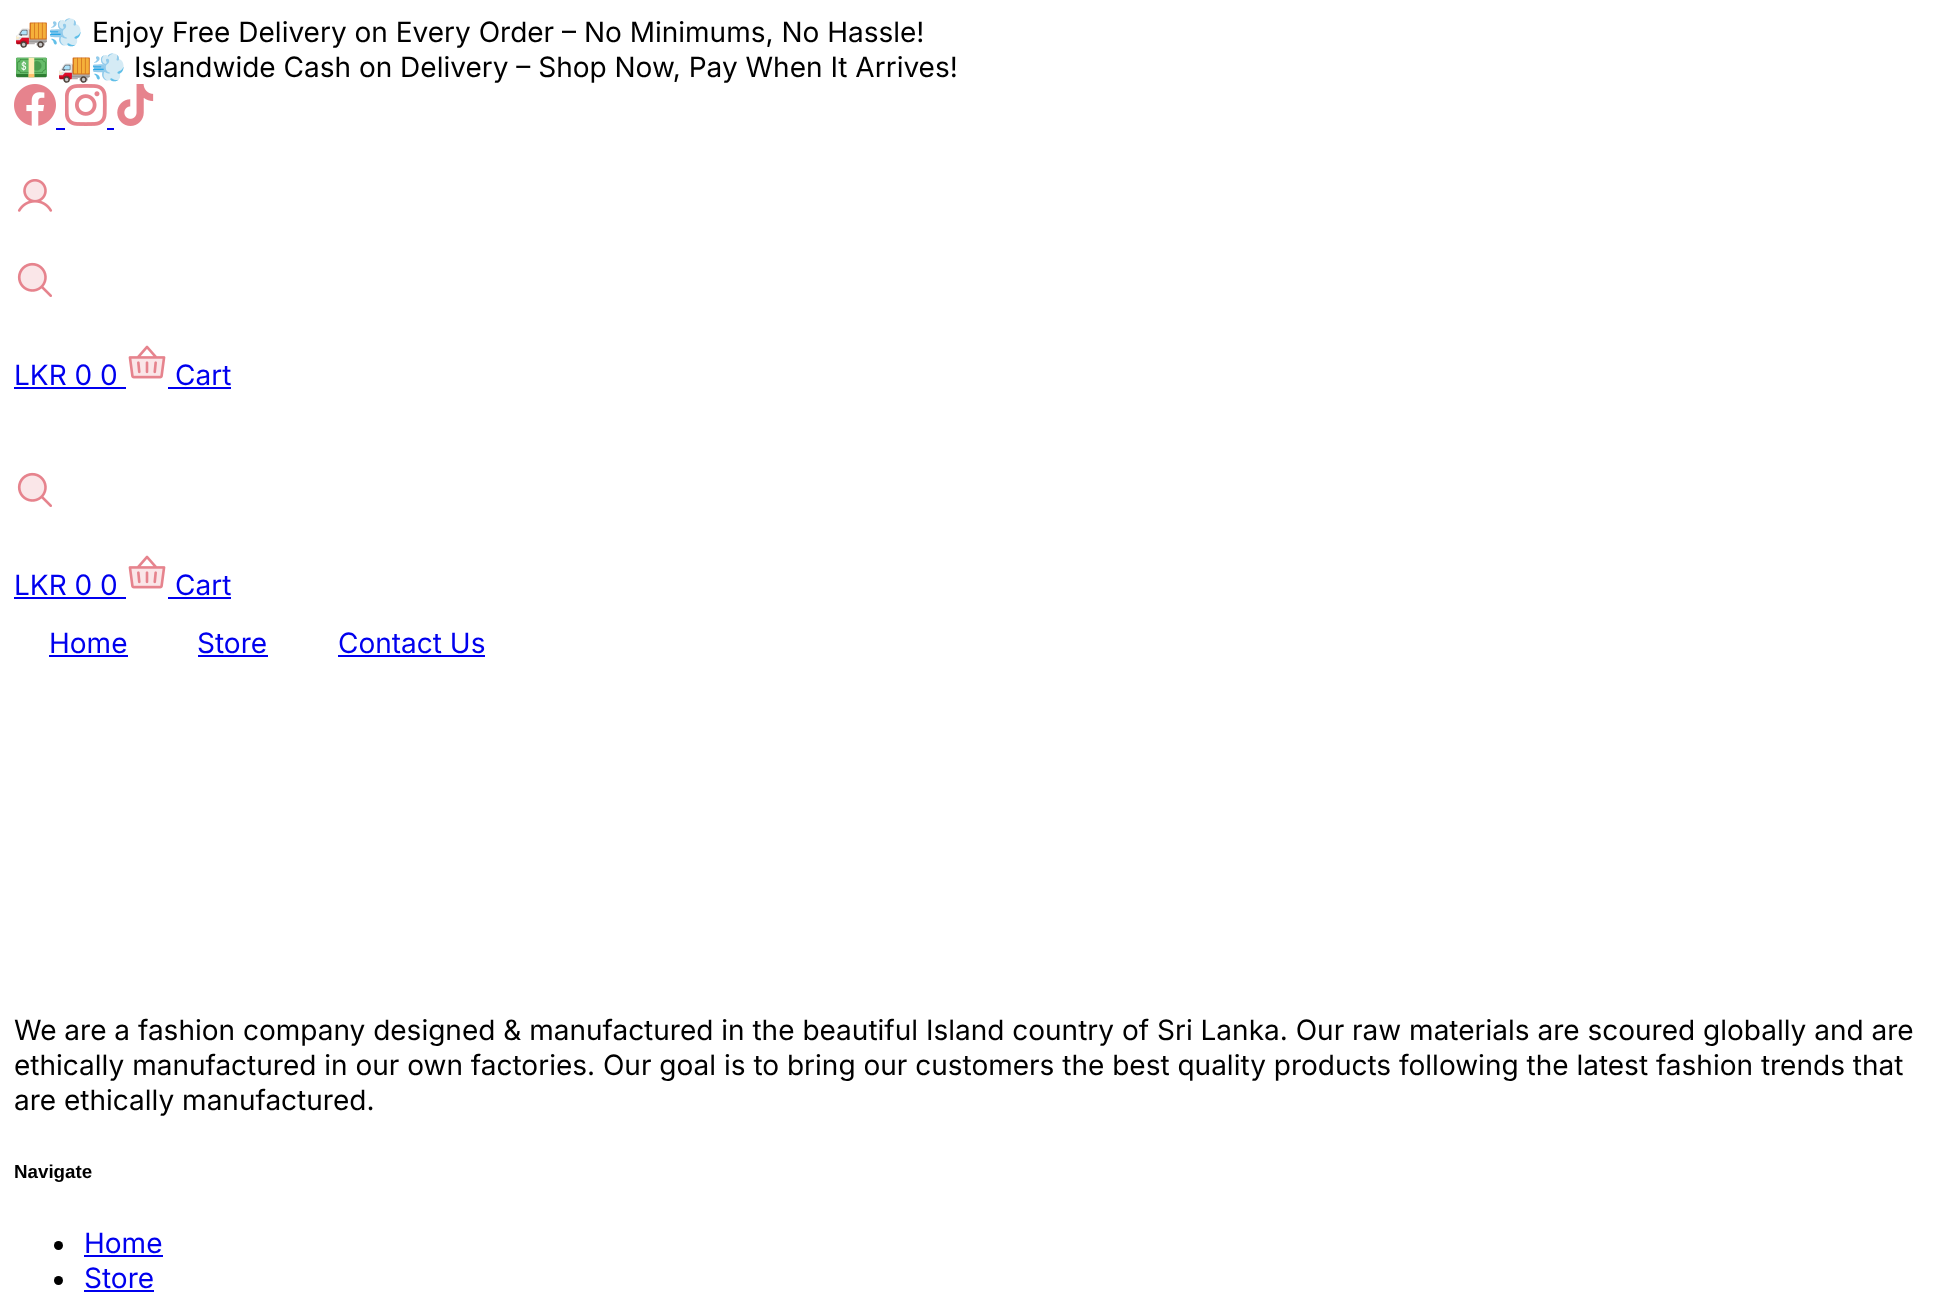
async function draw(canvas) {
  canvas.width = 1958;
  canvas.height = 1311;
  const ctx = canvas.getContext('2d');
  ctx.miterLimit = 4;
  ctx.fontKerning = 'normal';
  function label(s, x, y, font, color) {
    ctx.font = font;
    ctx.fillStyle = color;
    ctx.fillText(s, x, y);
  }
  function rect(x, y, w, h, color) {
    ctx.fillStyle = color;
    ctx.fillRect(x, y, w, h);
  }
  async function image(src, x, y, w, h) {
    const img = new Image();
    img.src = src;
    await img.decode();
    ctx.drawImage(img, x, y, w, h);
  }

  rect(0, 0, 1958, 1311, '#fff');
  label('🚚💨', 14, 42, '28px Noto Color Emoji', '#000');
  label('Enjoy Free Delivery on Every Order – No Minimums, No Hassle!', 92, 42, '28px Inter', '#000');
  label('💵', 14, 77, '28px Noto Color Emoji', '#000');
  label('🚚💨', 57, 77, '28px Noto Color Emoji', '#000');
  label('Islandwide Cash on Delivery – Shop Now, Pay When It Arrives!', 134, 77, '28px Inter', '#000');
  await image('assets/img1.png', 14, 84, 42, 42);
  await image('assets/img2.png', 65, 84, 42, 42);
  await image('assets/img3.png', 117, 84, 37, 42);
  rect(56, 128, 9, 2, '#00e');
  rect(107, 128, 7, 2, '#00e');
  await image('assets/img4.png', 17, 179, 36, 33);
  await image('assets/img5.png', 17, 262, 35, 35);
  label('LKR 0 0', 14, 385, '28px Inter', '#00e');
  rect(14, 387, 112, 2, '#00e');
  await image('assets/img6.png', 128, 345, 38, 34);
  label('Cart', 175, 385, '28px Inter', '#00e');
  rect(168, 387, 63, 2, '#00e');
  await image('assets/img5.png', 17, 472, 35, 35);
  label('LKR 0 0', 14, 595, '28px Inter', '#00e');
  rect(14, 597, 112, 2, '#00e');
  await image('assets/img6.png', 128, 555, 38, 34);
  label('Cart', 175, 595, '28px Inter', '#00e');
  rect(168, 597, 63, 2, '#00e');
  label('Home', 49, 653, '28px Inter', '#00e');
  rect(49, 655, 79, 2, '#00e');
  label('Store', 197, 653, '28px Inter', '#00e');
  rect(198, 655, 70, 2, '#00e');
  label('Contact Us', 338, 653, '28px Inter', '#00e');
  rect(338, 655, 147, 2, '#00e');
  label('We are a fashion company designed & manufactured in the beautiful Island country of Sri Lanka. Our raw materials are scoured globally and are', 14, 1040, '28px Inter', '#000');
  label('ethically manufactured in our own factories. Our goal is to bring our customers the best quality products following the latest fashion trends that', 14, 1075, '28px Inter', '#000');
  label('are ethically manufactured.', 14, 1110, '28px Inter', '#000');
  label('Navigate', 14, 1178, 'bold 18.75px Liberation Sans', '#000');
  ctx.beginPath();
  ctx.arc(58.5, 1245.5, 4.5, 0, 2 * Math.PI);
  ctx.fill();
  label('Home', 84, 1253, '28px Inter', '#00e');
  rect(84, 1255, 79, 2, '#00e');
  ctx.fillStyle = '#000';
  ctx.beginPath();
  ctx.arc(58.5, 1280.5, 4.5, 0, 2 * Math.PI);
  ctx.fill();
  label('Store', 84, 1288, '28px Inter', '#00e');
  rect(84, 1290, 70, 2, '#00e');
}

draw(document.querySelector('canvas'));
